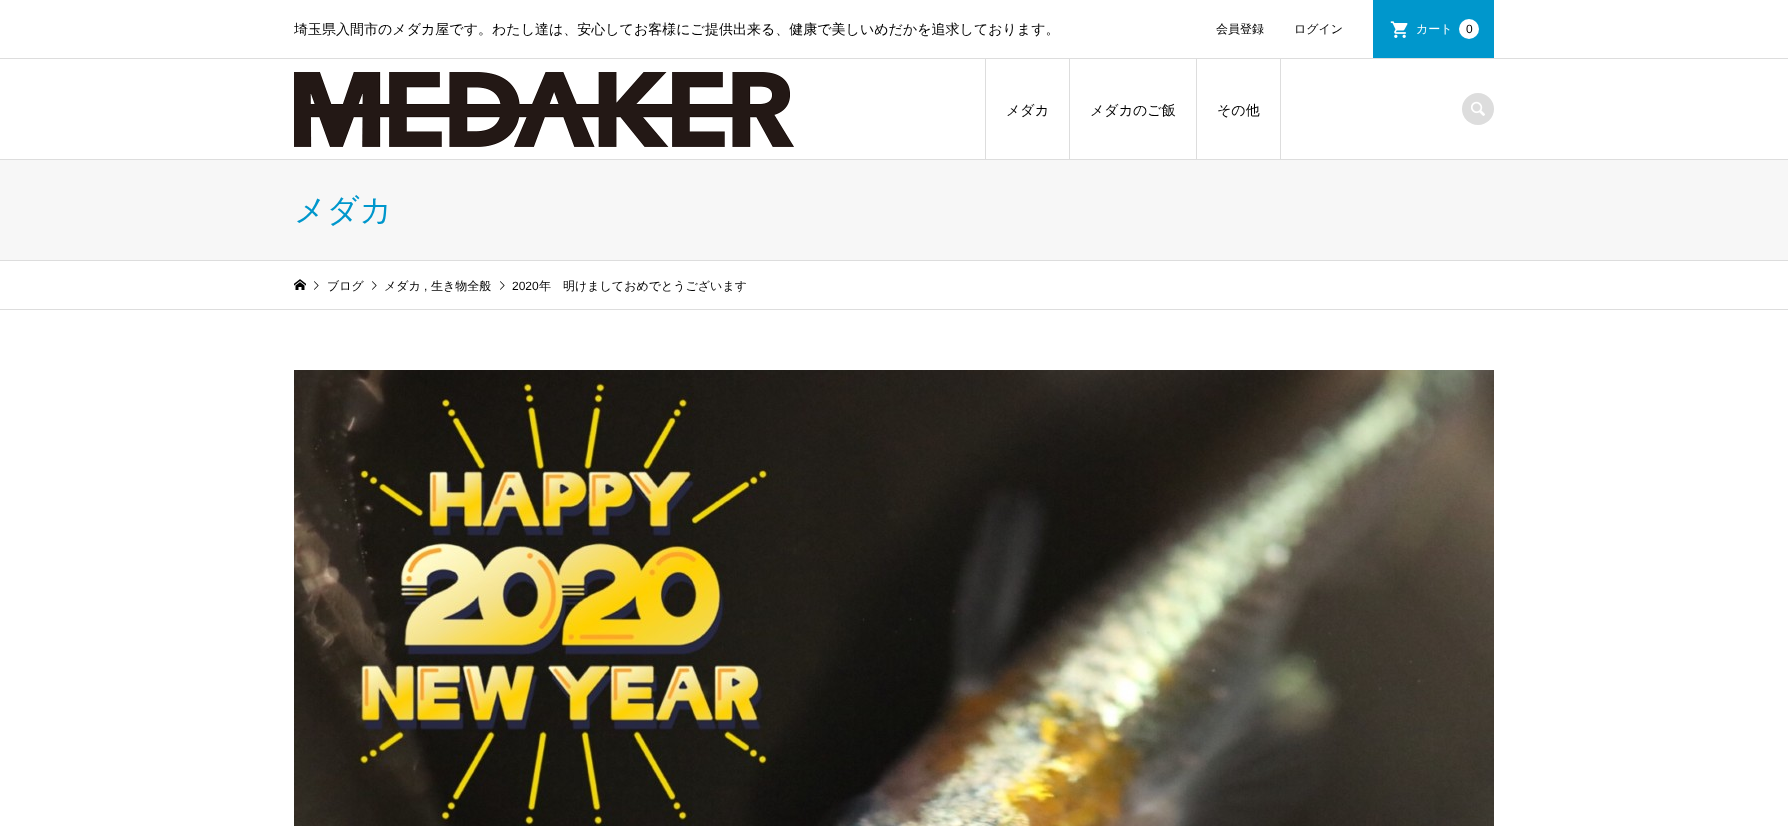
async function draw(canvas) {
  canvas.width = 1788;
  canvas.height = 826;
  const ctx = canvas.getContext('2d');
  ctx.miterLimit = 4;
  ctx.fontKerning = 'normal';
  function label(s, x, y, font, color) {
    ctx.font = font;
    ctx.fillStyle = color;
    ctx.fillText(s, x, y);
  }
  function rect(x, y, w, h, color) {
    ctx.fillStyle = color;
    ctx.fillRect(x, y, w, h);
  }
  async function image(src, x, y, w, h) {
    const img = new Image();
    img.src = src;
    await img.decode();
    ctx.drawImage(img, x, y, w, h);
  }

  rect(0, 0, 1788, 826, '#fff');
  rect(0, 58, 1788, 1, '#ddd');
  label('埼玉県入間市のメダカ屋です。わたし達は、安心してお客様にご提供出来る、健康で美しいめだかを追求しております。', 294, 34, '500 14px WenQuanYi Zen Hei', '#000');
  label('会員登録', 1216, 33, '500 12px WenQuanYi Zen Hei', '#000');
  label('ログイン', 1294, 33, '500 12px WenQuanYi Zen Hei', '#000');
  rect(1373, 0, 121, 58, '#0097cc');
  await image('assets/img1.png', 1390, 21, 18, 17);
  label('カート', 1416, 33, '500 12px WenQuanYi Zen Hei', '#fff');
  ctx.beginPath();
  ctx.arc(1469, 29, 10, 0, 2 * Math.PI);
  ctx.fill();
  label('0', 1466, 33, '12px Liberation Sans', '#000');
  rect(0, 159, 1788, 1, '#ddd');
  await image('assets/img2.png', 294, 72, 500, 75);
  rect(985, 59, 1, 100, '#ddd');
  rect(1069, 59, 1, 101, '#ddd');
  label('メダカ', 1006, 115, '500 14px WenQuanYi Zen Hei', '#000');
  rect(1196, 59, 1, 101, '#ddd');
  label('メダカのご飯', 1090, 115, '500 14px WenQuanYi Zen Hei', '#000');
  rect(1280, 59, 1, 101, '#ddd');
  label('その他', 1217, 115, '500 14px WenQuanYi Zen Hei', '#000');
  ctx.fillStyle = '#ddd';
  ctx.beginPath();
  ctx.arc(1478, 109, 16, 0, 2 * Math.PI);
  ctx.fill();
  await image('assets/img3.png', 1471, 101, 14, 15);
  rect(0, 160, 1788, 100, '#f7f7f7');
  rect(0, 260, 1788, 1, '#ddd');
  label('メダカ', 294, 221, '500 32px WenQuanYi Zen Hei', '#0097cc');
  rect(0, 309, 1788, 1, '#ddd');
  await image('assets/img4.png', 294, 279, 12, 11);
  await image('assets/img5.png', 314, 281, 5, 9);
  label('ブログ', 327, 290, '500 12px WenQuanYi Zen Hei', '#000');
  await image('assets/img5.png', 372, 281, 5, 9);
  label('メダカ', 384, 290, '500 12px WenQuanYi Zen Hei', '#000');
  label(',', 424, 290, '12px Liberation Sans', '#000');
  label('生き物全般', 431, 290, '500 12px WenQuanYi Zen Hei', '#000');
  await image('assets/img5.png', 500, 281, 5, 9);
  label('2020', 512, 290, '12px Liberation Sans', '#000');
  label('年　明けましておめでとうございます', 539, 290, '500 12px WenQuanYi Zen Hei', '#000');
  await image('assets/img6.png', 294, 370, 1200, 456);
}

draw(document.querySelector('canvas'));
